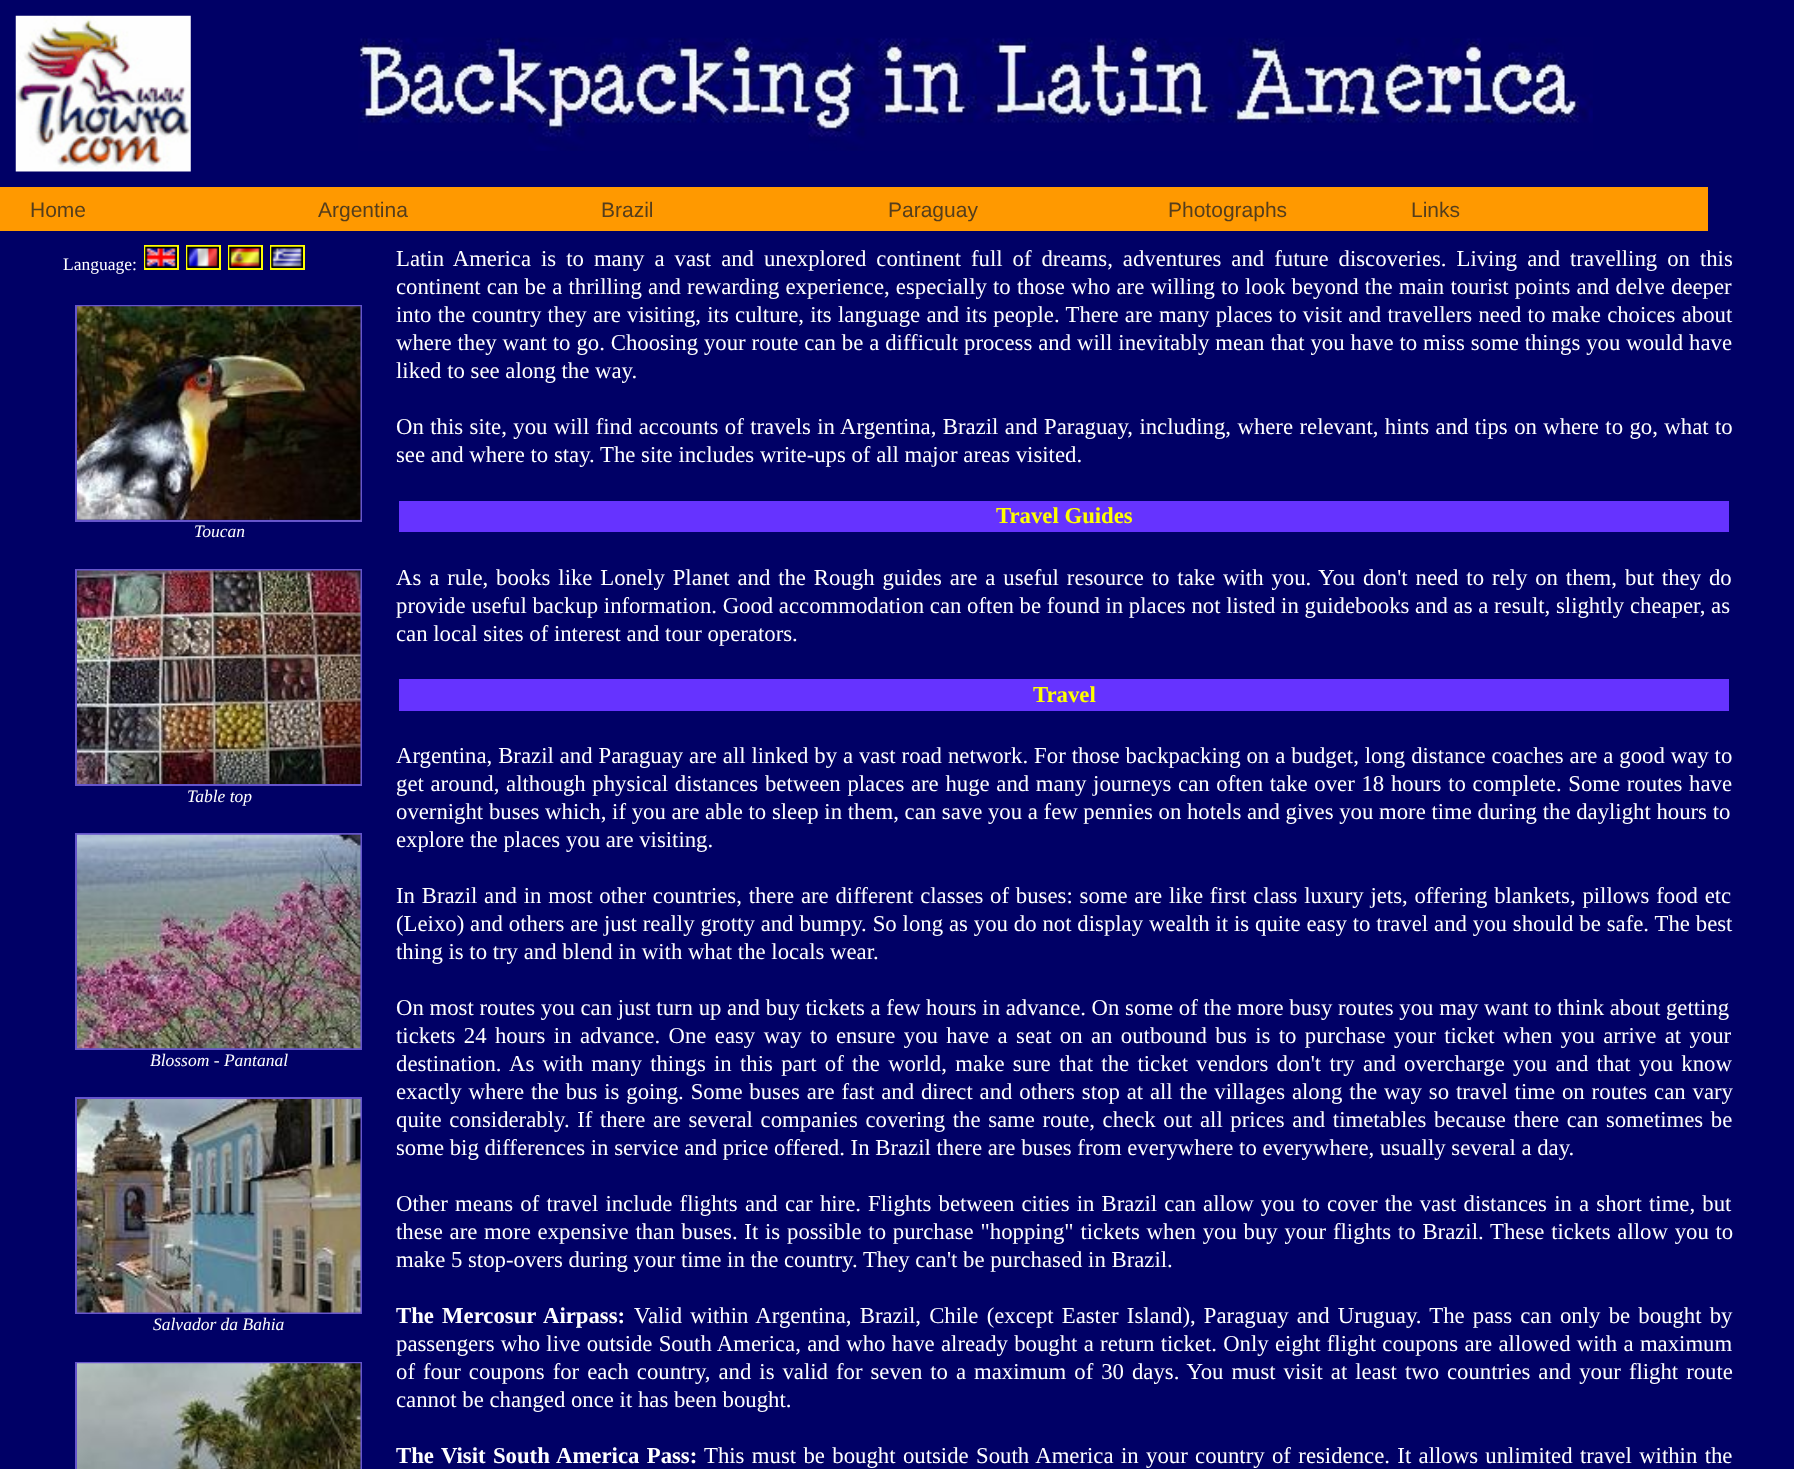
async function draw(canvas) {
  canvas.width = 1794;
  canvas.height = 1469;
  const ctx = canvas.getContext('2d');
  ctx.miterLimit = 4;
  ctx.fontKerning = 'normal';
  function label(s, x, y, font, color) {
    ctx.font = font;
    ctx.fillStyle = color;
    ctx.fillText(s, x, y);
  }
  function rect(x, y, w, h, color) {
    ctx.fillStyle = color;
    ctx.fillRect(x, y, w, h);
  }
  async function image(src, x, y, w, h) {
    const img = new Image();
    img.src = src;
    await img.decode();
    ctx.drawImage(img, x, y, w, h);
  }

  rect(0, 0, 1794, 1469, '#006');
  await image('assets/img1.png', 15, 15, 176, 157);
  await image('assets/img2.png', 358, 37, 1235, 114);
  rect(0, 187, 1708, 44, '#f90');
  label('Home', 30, 217, '21px Liberation Sans', '#553e1c');
  label('Argentina', 318, 217, '21px Liberation Sans', '#553e1c');
  label('Brazil', 601, 217, '21px Liberation Sans', '#553e1c');
  label('Paraguay', 888, 217, '21px Liberation Sans', '#553e1c');
  label('Photographs', 1168, 217, '21px Liberation Sans', '#553e1c');
  label('Links', 1411, 217, '21px Liberation Sans', '#553e1c');
  ctx.strokeStyle = '#ff0';
  ctx.lineWidth = 2;
  ctx.strokeRect(145, 246, 33, 23);
  ctx.strokeRect(187, 246, 33, 23);
  ctx.strokeRect(229, 246, 33, 23);
  ctx.strokeRect(271, 246, 33, 23);
  label('Language:', 63, 270, '17.5px Liberation Serif', '#fff');
  await image('assets/img3.png', 145, 246, 32, 22);
  await image('assets/img4.png', 187, 246, 32, 22);
  await image('assets/img5.png', 229, 246, 32, 22);
  await image('assets/img6.png', 271, 246, 32, 22);
  ctx.strokeStyle = '#65c';
  ctx.strokeRect(76, 306, 285, 215);
  await image('assets/img7.png', 77, 306, 284, 214);
  label('Toucan', 194, 537, 'italic 17.5px Liberation Serif', '#fff');
  ctx.strokeRect(76, 570, 285, 215);
  await image('assets/img8.png', 77, 570, 284, 214);
  label('Table top', 187, 802, 'italic 17.5px Liberation Serif', '#fff');
  ctx.strokeRect(76, 834, 285, 215);
  await image('assets/img9.png', 77, 834, 284, 215);
  label('Blossom - Pantanal', 150, 1066, 'italic 17.5px Liberation Serif', '#fff');
  ctx.strokeRect(76, 1098, 285, 215);
  await image('assets/img10.png', 77, 1099, 284, 214);
  label('Salvador da Bahia', 153, 1330, 'italic 17.5px Liberation Serif', '#fff');
  ctx.strokeRect(76, 1363, 285, 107);
  await image('assets/img11.png', 77, 1363, 284, 106);
  ctx.wordSpacing = '4.3px';
  label('Latin America is to many a vast and unexplored continent full of dreams, adventures and future discoveries. Living and travelling on this', 396, 266, '22.75px Liberation Serif', '#fff');
  ctx.wordSpacing = '0.5px';
  label('continent can be a thrilling and rewarding experience, especially to those who are willing to look beyond the main tourist points and delve deeper', 396, 294, '22.75px Liberation Serif', '#fff');
  ctx.wordSpacing = '0.6px';
  label('into the country they are visiting, its culture, its language and its people. There are many places to visit and travellers need to make choices about', 396, 322, '22.75px Liberation Serif', '#fff');
  ctx.wordSpacing = '0.25px';
  label('where they want to go. Choosing your route can be a difficult process and will inevitably mean that you have to miss some things you would have', 396, 350, '22.75px Liberation Serif', '#fff');
  ctx.wordSpacing = '0px';
  label('liked to see along the way.', 396, 378, '22.75px Liberation Serif', '#fff');
  ctx.wordSpacing = '0.75px';
  label('On this site, you will find accounts of travels in Argentina, Brazil and Paraguay, including, where relevant, hints and tips on where to go, what to', 396, 434, '22.75px Liberation Serif', '#fff');
  ctx.wordSpacing = '0px';
  label('see and where to stay. The site includes write-ups of all major areas visited.', 396, 462, '22.75px Liberation Serif', '#fff');
  rect(399, 501, 1330, 31, '#63f');
  label('Travel Guides', 996, 523, 'bold 22.75px Liberation Serif', '#ff0');
  ctx.wordSpacing = '2.2px';
  label('As a rule, books like Lonely Planet and the Rough guides are a useful resource to take with you. You don\'t need to rely on them, but they do', 396, 585, '22.75px Liberation Serif', '#fff');
  ctx.wordSpacing = '0px';
  label('provide useful backup information. Good accommodation can often be found in places not listed in guidebooks and as a result, slightly cheaper, as', 396, 613, '22.75px Liberation Serif', '#fff');
  label('can local sites of interest and tour operators.', 396, 641, '22.75px Liberation Serif', '#fff');
  rect(399, 679, 1330, 32, '#63f');
  label('Travel', 1033, 702, 'bold 22.75px Liberation Serif', '#ff0');
  ctx.wordSpacing = '0.25px';
  label('Argentina, Brazil and Paraguay are all linked by a vast road network. For those backpacking on a budget, long distance coaches are a good way to', 396, 763, '22.75px Liberation Serif', '#fff');
  ctx.wordSpacing = '1px';
  label('get around, although physical distances between places are huge and many journeys can often take over 18 hours to complete. Some routes have', 396, 791, '22.75px Liberation Serif', '#fff');
  ctx.wordSpacing = '0px';
  label('overnight buses which, if you are able to sleep in them, can save you a few pennies on hotels and gives you more time during the daylight hours to', 396, 819, '22.75px Liberation Serif', '#fff');
  label('explore the places you are visiting.', 396, 847, '22.75px Liberation Serif', '#fff');
  ctx.wordSpacing = '1.1px';
  label('In Brazil and in most other countries, there are different classes of buses: some are like first class luxury jets, offering blankets, pillows food etc', 396, 903, '22.75px Liberation Serif', '#fff');
  ctx.wordSpacing = '0.2px';
  label('(Leixo) and others are just really grotty and bumpy. So long as you do not display wealth it is quite easy to travel and you should be safe. The best', 396, 931, '22.75px Liberation Serif', '#fff');
  ctx.wordSpacing = '0px';
  label('thing is to try and blend in with what the locals wear.', 396, 959, '22.75px Liberation Serif', '#fff');
  label('On most routes you can just turn up and buy tickets a few hours in advance. On some of the more busy routes you may want to think about getting', 396, 1015, '22.75px Liberation Serif', '#fff');
  ctx.wordSpacing = '2.7px';
  label('tickets 24 hours in advance. One easy way to ensure you have a seat on an outbound bus is to purchase your ticket when you arrive at your', 396, 1043, '22.75px Liberation Serif', '#fff');
  ctx.wordSpacing = '0px';
  label('destination.', 396, 1071, '22.75px Liberation Serif', '#fff');
  ctx.wordSpacing = '2.6px';
  label('As with many things in this part of the world, make sure that the ticket vendors don\'t try and overcharge you and that you know', 509, 1071, '22.75px Liberation Serif', '#fff');
  ctx.wordSpacing = '1.2px';
  label('exactly where the bus is going. Some buses are fast and direct and others stop at all the villages along the way so travel time on routes can vary', 396, 1099, '22.75px Liberation Serif', '#fff');
  ctx.wordSpacing = '1.95px';
  label('quite considerably. If there are several companies covering the same route, check out all prices and timetables because there can sometimes be', 396, 1127, '22.75px Liberation Serif', '#fff');
  ctx.wordSpacing = '0px';
  label('some big differences in service and price offered. In Brazil there are buses from everywhere to everywhere, usually several a day.', 396, 1155, '22.75px Liberation Serif', '#fff');
  ctx.wordSpacing = '1.5px';
  label('Other means of travel include flights and car hire. Flights between cities in Brazil can allow you to cover the vast distances in a short time, but', 396, 1211, '22.75px Liberation Serif', '#fff');
  ctx.wordSpacing = '1.1px';
  label('these are more expensive than buses. It is possible to purchase "hopping" tickets when you buy your flights to Brazil. These tickets allow you to', 396, 1239, '22.75px Liberation Serif', '#fff');
  ctx.wordSpacing = '0px';
  label('make 5 stop-overs during your time in the country. They can\'t be purchased in Brazil.', 396, 1267, '22.75px Liberation Serif', '#fff');
  ctx.wordSpacing = '2.5px';
  label('The Mercosur Airpass:', 396, 1323, 'bold 22.75px Liberation Serif', '#fff');
  label('Valid within Argentina, Brazil, Chile (except Easter Island), Paraguay and Uruguay. The pass can only be bought by', 634, 1323, '22.75px Liberation Serif', '#fff');
  ctx.wordSpacing = '0.6px';
  label('passengers who live outside South America, and who have already bought a return ticket. Only eight flight coupons are allowed with a maximum', 396, 1351, '22.75px Liberation Serif', '#fff');
  ctx.wordSpacing = '2.3px';
  label('of four coupons for each country, and is valid for seven to a maximum of 30 days. You must visit at least two countries and your flight route', 396, 1379, '22.75px Liberation Serif', '#fff');
  ctx.wordSpacing = '0px';
  label('cannot be changed once it has been bought.', 396, 1407, '22.75px Liberation Serif', '#fff');
  ctx.wordSpacing = '1.7px';
  label('The Visit South America Pass:', 396, 1463, 'bold 22.75px Liberation Serif', '#fff');
  label('This must be bought outside South America in your country of residence. It allows unlimited travel within the', 704, 1463, '22.75px Liberation Serif', '#fff');
}

draw(document.querySelector('canvas'));
